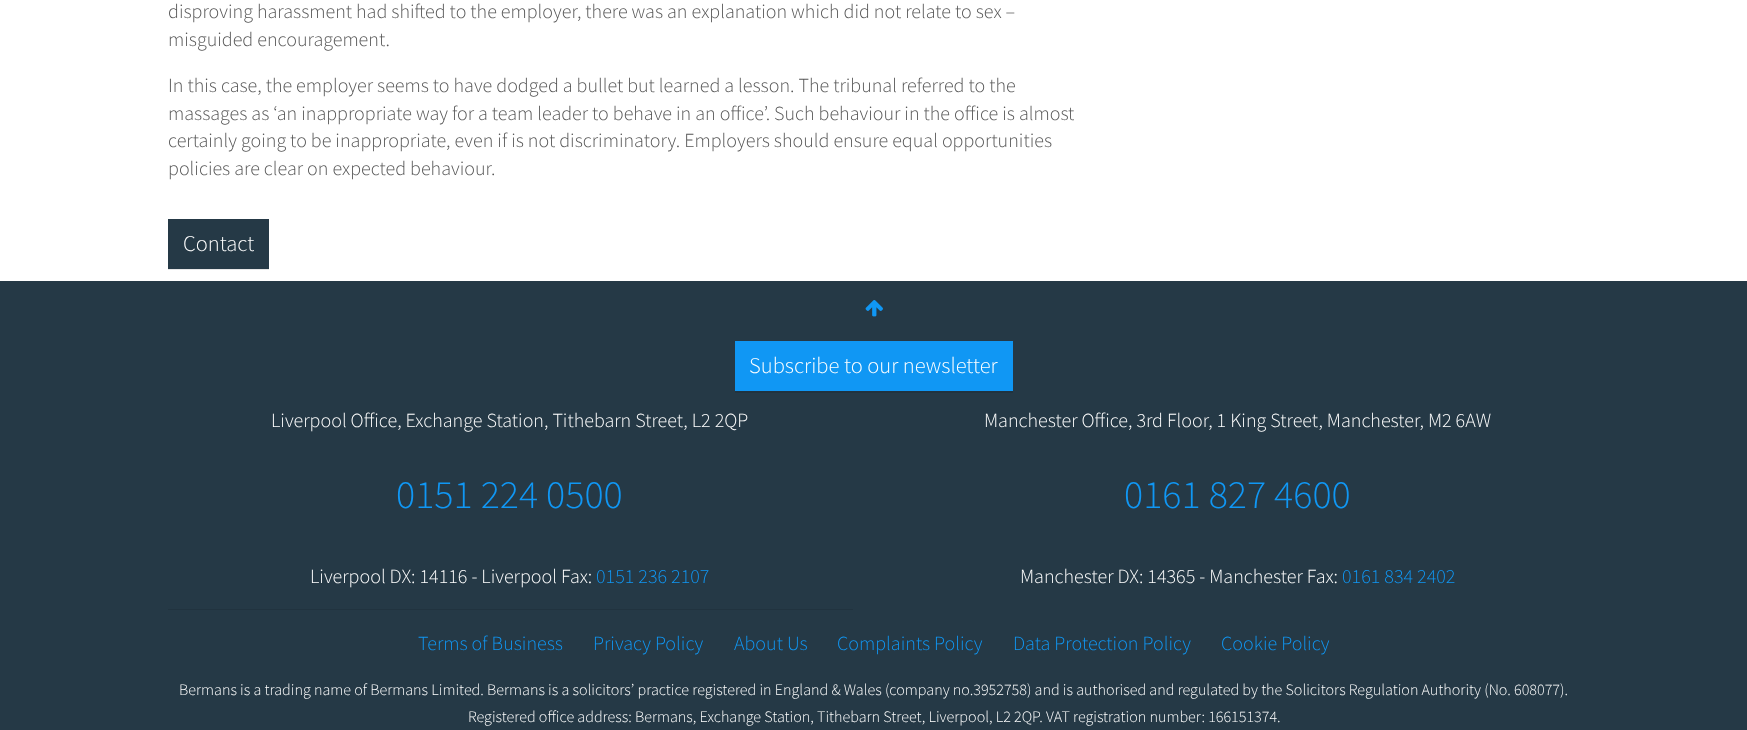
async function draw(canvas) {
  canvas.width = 1747;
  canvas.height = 730;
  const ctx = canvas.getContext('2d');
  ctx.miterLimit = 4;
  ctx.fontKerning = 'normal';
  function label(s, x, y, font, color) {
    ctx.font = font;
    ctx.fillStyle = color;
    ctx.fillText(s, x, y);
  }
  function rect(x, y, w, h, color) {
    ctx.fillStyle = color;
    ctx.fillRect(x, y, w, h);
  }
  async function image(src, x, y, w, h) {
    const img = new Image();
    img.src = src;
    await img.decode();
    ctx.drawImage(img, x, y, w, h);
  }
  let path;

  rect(0, 0, 1747, 730, '#fff');
  label('disproving harassment had shifted to the employer, there was an explanation which did not relate to sex –', 168, 18, '300 20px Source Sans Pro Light', '#555');
  label('misguided encouragement.', 168, 46, '300 20px Source Sans Pro Light', '#555');
  label('In this case, the employer seems to have dodged a bullet but learned a lesson. The tribunal referred to the', 168, 92, '300 20px Source Sans Pro Light', '#555');
  label('massages as ‘an inappropriate way for a team leader to behave in an office’. Such behaviour in the office is almost', 168, 120, '300 20px Source Sans Pro Light', '#555');
  label('certainly going to be inappropriate, even if is not discriminatory. Employers should ensure equal opportunities', 168, 147, '300 20px Source Sans Pro Light', '#555');
  label('policies are clear on expected behaviour.', 168, 175, '300 20px Source Sans Pro Light', '#555');
  ctx.fillStyle = '#e6e6e6';
  path = new Path2D('M168 269V270H269V220V269Z');
  ctx.fill(path);
  rect(168, 219, 101, 50, '#253946');
  label('Contact', 183, 251, '300 22.5px Source Sans Pro Light', '#fff');
  rect(0, 281, 1747, 449, '#253946');
  await image('assets/img1.png', 865, 300, 18, 17);
  ctx.fillStyle = '#21333f';
  path = new Path2D('M735 391V393H1013V343H1012V391Z');
  ctx.fill(path);
  rect(735, 341, 278, 50, '#1097f4');
  label('Subscribe to our newsletter', 749, 373, '300 22.5px Source Sans Pro Light', '#fff');
  label('Liverpool Office, Exchange Station, Tithebarn Street, L2 2QP', 271, 427, '300 20px Source Sans Pro Light', '#fff');
  label('0151 224 0500', 396, 508, '300 40px Source Sans Pro Light', '#1097f4');
  label('Liverpool DX: 14116 - Liverpool Fax:', 310, 583, '300 20px Source Sans Pro Light', '#fff');
  label('0151 236 2107', 596, 583, '300 20px Source Sans Pro Light', '#1097f4');
  rect(168, 609, 685, 1, '#21333f');
  label('Manchester Office, 3rd Floor, 1 King Street, Manchester, M2 6AW', 984, 427, '300 20px Source Sans Pro Light', '#fff');
  label('0161 827 4600', 1124, 508, '300 40px Source Sans Pro Light', '#1097f4');
  label('Manchester DX: 14365 - Manchester Fax:', 1020, 583, '300 20px Source Sans Pro Light', '#fff');
  label('0161 834 2402', 1342, 583, '300 20px Source Sans Pro Light', '#1097f4');
  label('Terms of Business', 418, 650, '300 20px Source Sans Pro Light', '#1097f4');
  label('Privacy Policy', 593, 650, '300 20px Source Sans Pro Light', '#1097f4');
  label('About Us', 734, 650, '300 20px Source Sans Pro Light', '#1097f4');
  label('Complaints Policy', 837, 650, '300 20px Source Sans Pro Light', '#1097f4');
  label('Data Protection Policy', 1013, 650, '300 20px Source Sans Pro Light', '#1097f4');
  label('Cookie Policy', 1221, 650, '300 20px Source Sans Pro Light', '#1097f4');
  label('Bermans is a trading name of Bermans Limited. Bermans is a solicitors’ practice registered in England & Wales (company no.3952758) and is authorised and regulated by the Solicitors Regulation Authority (No. 608077).', 179, 695, '300 16px Source Sans Pro Light', '#fff');
  label('Registered office address: Bermans, Exchange Station, Tithebarn Street, Liverpool, L2 2QP. VAT registration number: 166151374.', 468, 722, '300 16px Source Sans Pro Light', '#fff');
}

draw(document.querySelector('canvas'));
